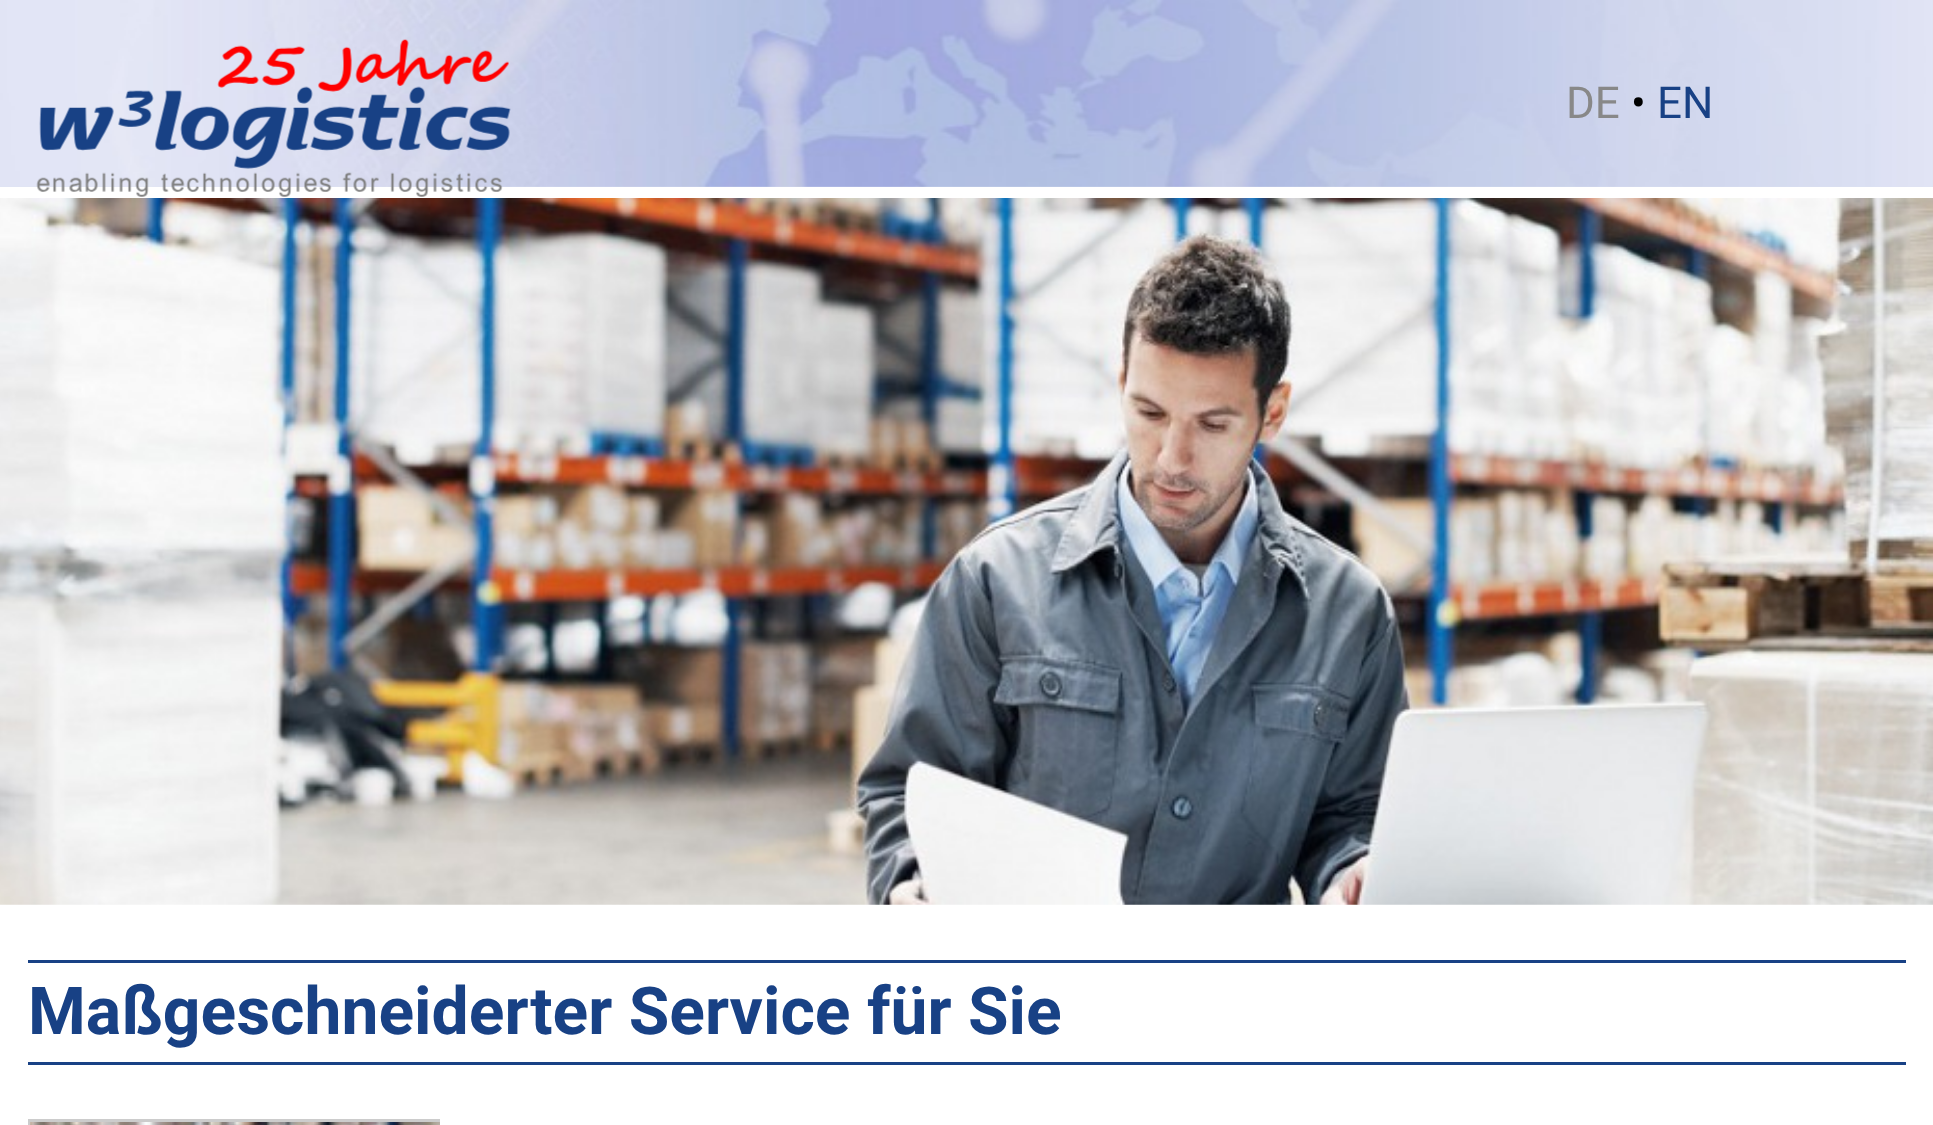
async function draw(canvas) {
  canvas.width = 1933;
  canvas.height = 1125;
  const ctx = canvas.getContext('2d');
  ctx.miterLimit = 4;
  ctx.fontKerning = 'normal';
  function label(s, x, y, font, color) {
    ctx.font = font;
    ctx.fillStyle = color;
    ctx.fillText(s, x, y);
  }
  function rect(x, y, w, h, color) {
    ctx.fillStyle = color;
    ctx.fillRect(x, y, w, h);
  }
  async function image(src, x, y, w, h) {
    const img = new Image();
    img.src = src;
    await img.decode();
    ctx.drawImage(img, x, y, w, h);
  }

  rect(0, 0, 1933, 1125, '#fff');
  rect(0, 0, 1933, 187, '#dce2ed');
  await image('assets/img1.png', 0, 0, 1933, 187);
  label('DE', 1566, 118, '44px Roboto', '#888');
  label('•', 1631, 118, '44px Roboto', '#000');
  label('EN', 1657, 118, '44px Roboto', '#184185');
  await image('assets/img2.png', 36, 39, 475, 158);
  await image('assets/img3.png', 0, 198, 1933, 707);
  rect(28, 960, 1878, 3, '#184185');
  rect(28, 1062, 1878, 3, '#184185');
  label('Maßgeschneiderter Service für Sie', 28, 1034, 'bold 66px Roboto', '#184185');
  rect(28, 1119, 412, 3, '#ccc');
  rect(28, 1119, 3, 6, '#ccc');
  await image('assets/img4.png', 30, 1122, 410, 3);
}

draw(document.querySelector('canvas'));
